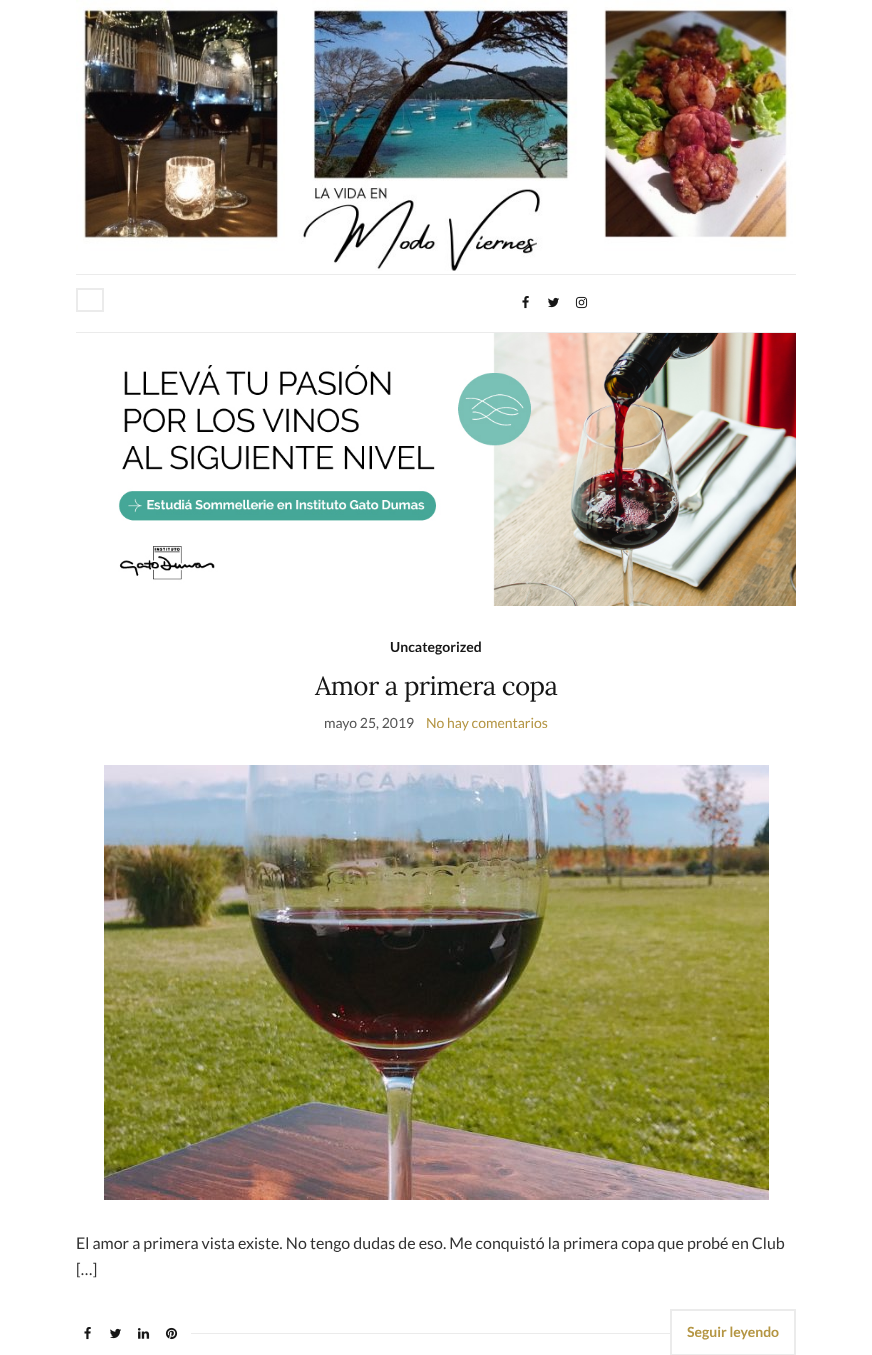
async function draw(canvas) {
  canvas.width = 872;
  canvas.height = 1355;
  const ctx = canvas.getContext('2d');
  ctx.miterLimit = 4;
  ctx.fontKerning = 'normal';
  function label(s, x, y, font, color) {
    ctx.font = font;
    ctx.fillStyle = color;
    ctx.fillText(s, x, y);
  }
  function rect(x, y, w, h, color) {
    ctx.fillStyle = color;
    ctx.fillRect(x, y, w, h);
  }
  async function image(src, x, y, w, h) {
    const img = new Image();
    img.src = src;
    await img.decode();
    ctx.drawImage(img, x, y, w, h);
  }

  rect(0, 0, 872, 1355, '#fff');
  await image('assets/img1.png', 76, 0, 720, 271);
  rect(76, 274, 720, 1, '#ebebeb');
  rect(76, 332, 720, 1, '#ebebeb');
  ctx.strokeStyle = '#ebebeb';
  ctx.lineWidth = 2;
  ctx.strokeRect(77, 289, 26, 22);
  await image('assets/img2.png', 522, 296, 7, 13);
  await image('assets/img3.png', 548, 297, 11, 11);
  await image('assets/img4.png', 575, 296, 13, 13);
  await image('assets/img5.png', 118, 333, 678, 273);
  label('Uncategorized', 390, 652, 'bold 14px Lato', '#161616');
  ctx.letterSpacing = '-0.6px';
  label('Amor a primera copa', 315, 695, '26px Lora', '#161616');
  ctx.letterSpacing = '0px';
  label('mayo 25, 2019', 324, 728, '14px Lato', '#545454');
  label('No hay comentarios', 426, 728, '14px Lato', '#b49543');
  await image('assets/img6.png', 104, 765, 665, 435);
  label('El amor a primera vista existe. No tengo dudas de eso. Me conquistó la primera copa que probé en Club', 76, 1249, '16px Lato', '#333');
  label('[…]', 76, 1275, '16px Lato', '#333');
  await image('assets/img2.png', 84, 1327, 7, 13);
  await image('assets/img3.png', 110, 1328, 11, 11);
  await image('assets/img7.png', 137, 1328, 13, 11);
  await image('assets/img8.png', 165, 1327, 13, 13);
  rect(191, 1333, 479, 1, '#ebebeb');
  ctx.strokeRect(671, 1310, 124, 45);
  label('Seguir leyendo', 687, 1337, 'bold 14px Lato', '#b49543');
}

draw(document.querySelector('canvas'));
